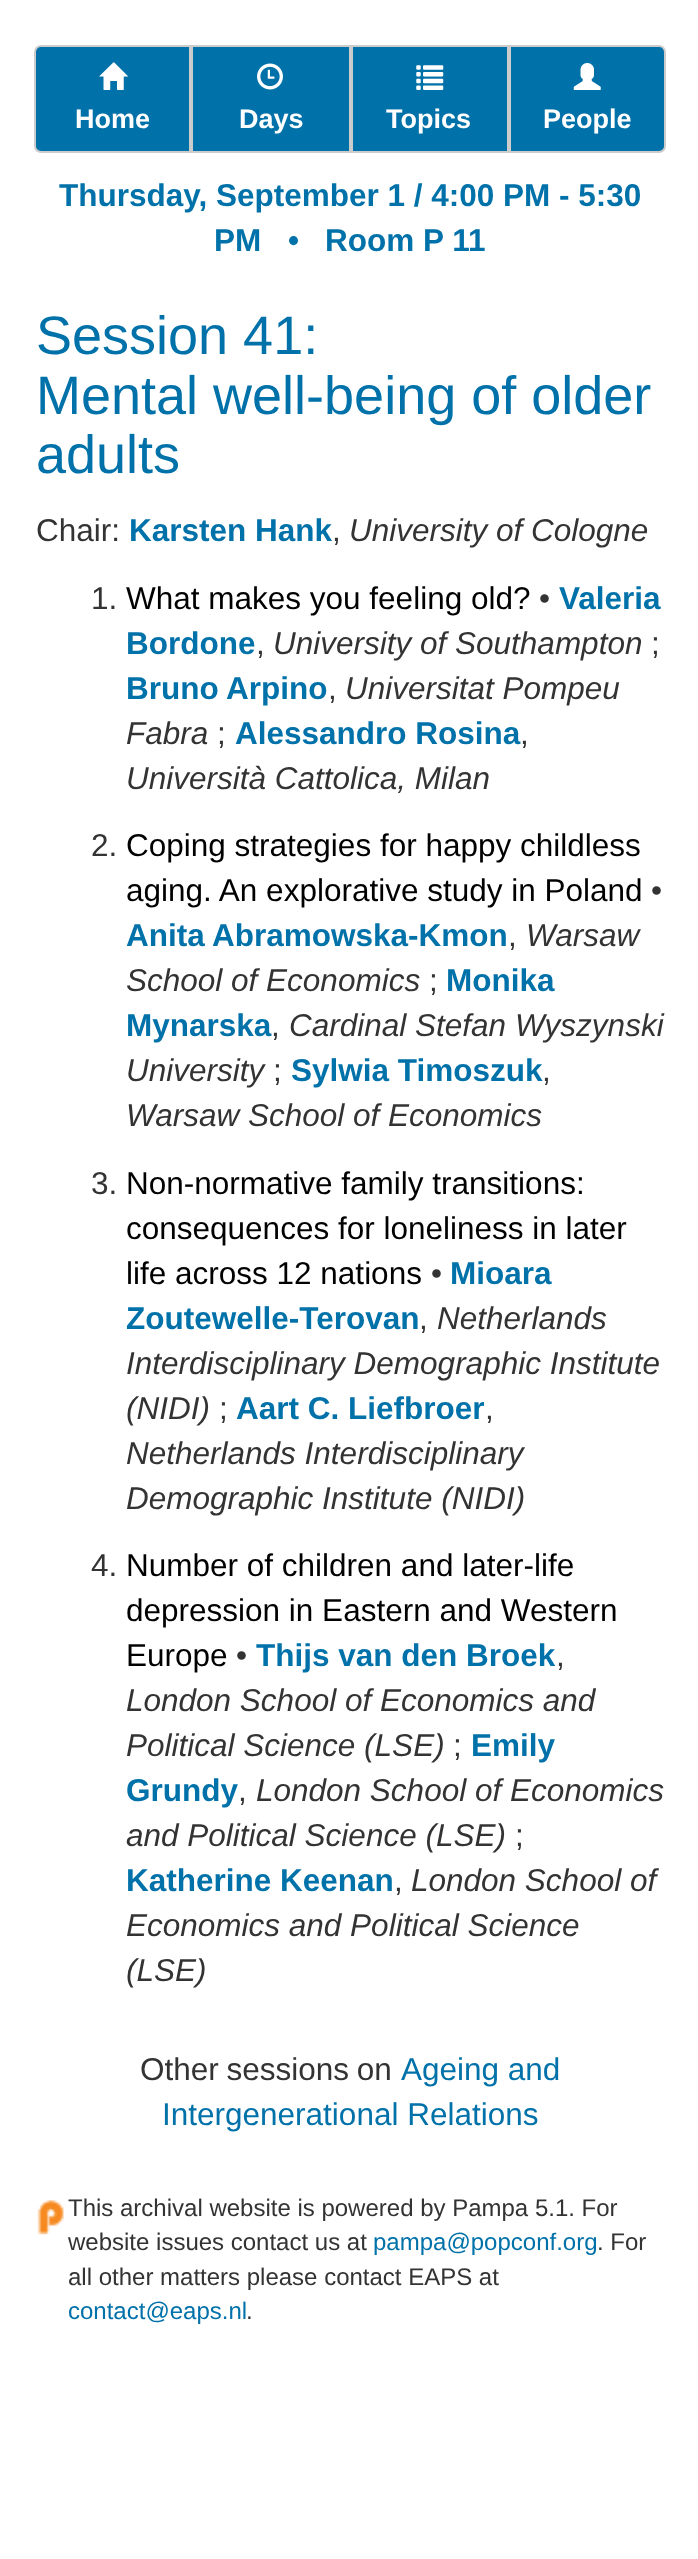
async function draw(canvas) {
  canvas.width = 698;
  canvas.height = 2559;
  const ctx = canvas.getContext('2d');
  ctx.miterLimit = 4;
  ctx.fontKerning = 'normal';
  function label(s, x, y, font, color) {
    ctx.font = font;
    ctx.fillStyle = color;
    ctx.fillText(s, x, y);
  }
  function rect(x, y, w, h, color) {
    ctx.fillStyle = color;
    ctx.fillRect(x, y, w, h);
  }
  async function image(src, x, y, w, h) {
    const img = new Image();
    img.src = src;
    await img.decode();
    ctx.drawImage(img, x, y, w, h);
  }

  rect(0, 0, 698, 2559, '#fff');
  ctx.fillStyle = '#0071a9';
  ctx.beginPath();
  ctx.roundRect(35, 46, 155, 106, [6, 0, 0, 6]);
  ctx.fill();
  ctx.strokeStyle = '#ccc';
  ctx.lineWidth = 2;
  ctx.stroke();
  await image('assets/img1.png', 99, 62, 29, 28);
  label('Home', 75, 128, 'bold 27px Liberation Sans', '#fff');
  ctx.fillStyle = '#0071a9';
  ctx.beginPath();
  ctx.rect(192, 46, 158, 106);
  ctx.fill();
  ctx.stroke();
  await image('assets/img2.png', 257, 63, 26, 27);
  label('Days', 239, 128, 'bold 27px Liberation Sans', '#fff');
  ctx.fillStyle = '#0071a9';
  ctx.beginPath();
  ctx.rect(352, 46, 156, 106);
  ctx.fill();
  ctx.stroke();
  await image('assets/img3.png', 416, 65, 28, 25);
  label('Topics', 386, 128, 'bold 27px Liberation Sans', '#fff');
  ctx.fillStyle = '#0071a9';
  ctx.beginPath();
  ctx.roundRect(510, 46, 155, 106, [0, 6, 6, 0]);
  ctx.fill();
  ctx.stroke();
  await image('assets/img4.png', 573, 63, 28, 27);
  label('People', 543, 128, 'bold 27px Liberation Sans', '#fff');
  label('Thursday, September 1 / 4:00 PM - 5:30', 59, 206, 'bold 31.5px Liberation Sans', '#0071a9');
  label('PM', 214, 251, 'bold 31.5px Liberation Sans', '#0071a9');
  label('•', 288, 251, 'bold 31.5px Liberation Sans', '#0071a9');
  label('Room P 11', 325, 251, 'bold 31.5px Liberation Sans', '#0071a9');
  label('Session 41:', 36, 354, '54px Liberation Sans', '#0071a9');
  label('Mental well-being of older', 36, 414, '54px Liberation Sans', '#0071a9');
  label('adults', 36, 473, '54px Liberation Sans', '#0071a9');
  label('Chair:', 36, 541, '31.5px Liberation Sans', '#333');
  label('Karsten Hank', 129, 541, 'bold 31.5px Liberation Sans', '#0071a9');
  label(',', 332, 541, '31.5px Liberation Sans', '#333');
  label('University of Cologne', 349, 541, 'italic 31.5px Liberation Sans', '#333');
  label('1.', 91, 609, '31.5px Liberation Sans', '#333');
  label('What makes you feeling old?', 126, 609, '31.5px Liberation Sans', '#000');
  label('•', 539, 609, '31.5px Liberation Sans', '#333');
  label('Valeria', 559, 609, 'bold 31.5px Liberation Sans', '#0071a9');
  label('Bordone', 126, 654, 'bold 31.5px Liberation Sans', '#0071a9');
  label(',', 256, 654, '31.5px Liberation Sans', '#333');
  label('University of Southampton', 273, 654, 'italic 31.5px Liberation Sans', '#333');
  label(';', 651, 654, '31.5px Liberation Sans', '#333');
  label('Bruno', 126, 699, 'bold 31.5px Liberation Sans', '#0071a9');
  label('Arpino', 226, 699, 'bold 31.5px Liberation Sans', '#0071a9');
  label(',', 328, 699, '31.5px Liberation Sans', '#333');
  label('Universitat Pompeu', 345, 699, 'italic 31.5px Liberation Sans', '#333');
  label('Fabra', 126, 744, 'italic 31.5px Liberation Sans', '#333');
  label(';', 217, 744, '31.5px Liberation Sans', '#333');
  label('Alessandro Rosina', 235, 744, 'bold 31.5px Liberation Sans', '#0071a9');
  label(',', 520, 744, '31.5px Liberation Sans', '#333');
  label('Università Cattolica, Milan', 126, 789, 'italic 31.5px Liberation Sans', '#333');
  label('2.', 91, 856, '31.5px Liberation Sans', '#333');
  label('Coping strategies for happy childless', 126, 856, '31.5px Liberation Sans', '#000');
  label('aging. An explorative study in Poland', 126, 901, '31.5px Liberation Sans', '#000');
  label('•', 651, 901, '31.5px Liberation Sans', '#333');
  label('Anita', 126, 946, 'bold 31.5px Liberation Sans', '#0071a9');
  label('Abramowska-Kmon', 212, 946, 'bold 31.5px Liberation Sans', '#0071a9');
  label(',', 508, 946, '31.5px Liberation Sans', '#333');
  label('Warsaw', 526, 946, 'italic 31.5px Liberation Sans', '#333');
  label('School of Economics', 126, 991, 'italic 31.5px Liberation Sans', '#333');
  label(';', 429, 991, '31.5px Liberation Sans', '#333');
  label('Monika', 446, 991, 'bold 31.5px Liberation Sans', '#0071a9');
  label('Mynarska', 126, 1036, 'bold 31.5px Liberation Sans', '#0071a9');
  label(',', 271, 1036, '31.5px Liberation Sans', '#333');
  label('Cardinal Stefan Wyszynski', 289, 1036, 'italic 31.5px Liberation Sans', '#333');
  label('University', 126, 1081, 'italic 31.5px Liberation Sans', '#333');
  label(';', 273, 1081, '31.5px Liberation Sans', '#333');
  label('Sylwia Timoszuk', 291, 1081, 'bold 31.5px Liberation Sans', '#0071a9');
  label(',', 542, 1081, '31.5px Liberation Sans', '#333');
  label('Warsaw School of Economics', 126, 1126, 'italic 31.5px Liberation Sans', '#333');
  label('3.', 91, 1194, '31.5px Liberation Sans', '#333');
  label('Non-normative family transitions:', 126, 1194, '31.5px Liberation Sans', '#000');
  label('consequences for loneliness in later', 126, 1239, '31.5px Liberation Sans', '#000');
  label('life across 12 nations', 126, 1284, '31.5px Liberation Sans', '#000');
  label('•', 431, 1284, '31.5px Liberation Sans', '#333');
  label('Mioara', 450, 1284, 'bold 31.5px Liberation Sans', '#0071a9');
  label('Zoutewelle-Terovan', 126, 1329, 'bold 31.5px Liberation Sans', '#0071a9');
  label(',', 419, 1329, '31.5px Liberation Sans', '#333');
  label('Netherlands', 437, 1329, 'italic 31.5px Liberation Sans', '#333');
  label('Interdisciplinary Demographic Institute', 126, 1374, 'italic 31.5px Liberation Sans', '#333');
  label('(NIDI)', 126, 1419, 'italic 31.5px Liberation Sans', '#333');
  label(';', 219, 1419, '31.5px Liberation Sans', '#333');
  label('Aart C. Liefbroer', 236, 1419, 'bold 31.5px Liberation Sans', '#0071a9');
  label(',', 485, 1419, '31.5px Liberation Sans', '#333');
  label('Netherlands Interdisciplinary', 126, 1464, 'italic 31.5px Liberation Sans', '#333');
  label('Demographic Institute (NIDI)', 126, 1509, 'italic 31.5px Liberation Sans', '#333');
  label('4.', 91, 1576, '31.5px Liberation Sans', '#333');
  label('Number of children and later-life', 126, 1576, '31.5px Liberation Sans', '#000');
  label('depression in Eastern and Western', 126, 1621, '31.5px Liberation Sans', '#000');
  label('Europe', 126, 1666, '31.5px Liberation Sans', '#000');
  label('•', 236, 1666, '31.5px Liberation Sans', '#333');
  label('Thijs van den Broek', 256, 1666, 'bold 31.5px Liberation Sans', '#0071a9');
  label(',', 556, 1666, '31.5px Liberation Sans', '#333');
  label('London School of Economics and', 126, 1711, 'italic 31.5px Liberation Sans', '#333');
  label('Political Science (LSE)', 126, 1756, 'italic 31.5px Liberation Sans', '#333');
  label(';', 453, 1756, '31.5px Liberation Sans', '#333');
  label('Emily', 471, 1756, 'bold 31.5px Liberation Sans', '#0071a9');
  label('Grundy', 126, 1801, 'bold 31.5px Liberation Sans', '#0071a9');
  label(',', 238, 1801, '31.5px Liberation Sans', '#333');
  label('London School of Economics', 256, 1801, 'italic 31.5px Liberation Sans', '#333');
  label('and Political Science (LSE)', 126, 1846, 'italic 31.5px Liberation Sans', '#333');
  label(';', 515, 1846, '31.5px Liberation Sans', '#333');
  label('Katherine Keenan', 126, 1891, 'bold 31.5px Liberation Sans', '#0071a9');
  label(',', 394, 1891, '31.5px Liberation Sans', '#333');
  label('London School of', 411, 1891, 'italic 31.5px Liberation Sans', '#333');
  label('Economics and Political Science', 126, 1936, 'italic 31.5px Liberation Sans', '#333');
  label('(LSE)', 126, 1981, 'italic 31.5px Liberation Sans', '#333');
  ctx.wordSpacing = '-1px';
  label('Other sessions on', 140, 2080, '31.5px Liberation Sans', '#333');
  ctx.wordSpacing = '0px';
  label('Ageing and', 401, 2080, '31.5px Liberation Sans', '#0071a9');
  label('Intergenerational Relations', 162, 2125, '31.5px Liberation Sans', '#0071a9');
  await image('assets/img5.png', 37, 2200, 27, 35);
  label('This archival website is powered by Pampa 5.1. For', 68, 2216, '24px Liberation Sans', '#333');
  label('website issues contact us at', 68, 2250, '24px Liberation Sans', '#333');
  label('pampa@popconf.org', 373, 2250, '24px Liberation Sans', '#0071a9');
  label('. For', 597, 2250, '24px Liberation Sans', '#333');
  label('all other matters please contact EAPS at', 68, 2285, '24px Liberation Sans', '#333');
  label('contact@eaps.nl', 68, 2319, '24px Liberation Sans', '#0071a9');
  label('.', 246, 2319, '24px Liberation Sans', '#333');
}

draw(document.querySelector('canvas'));
